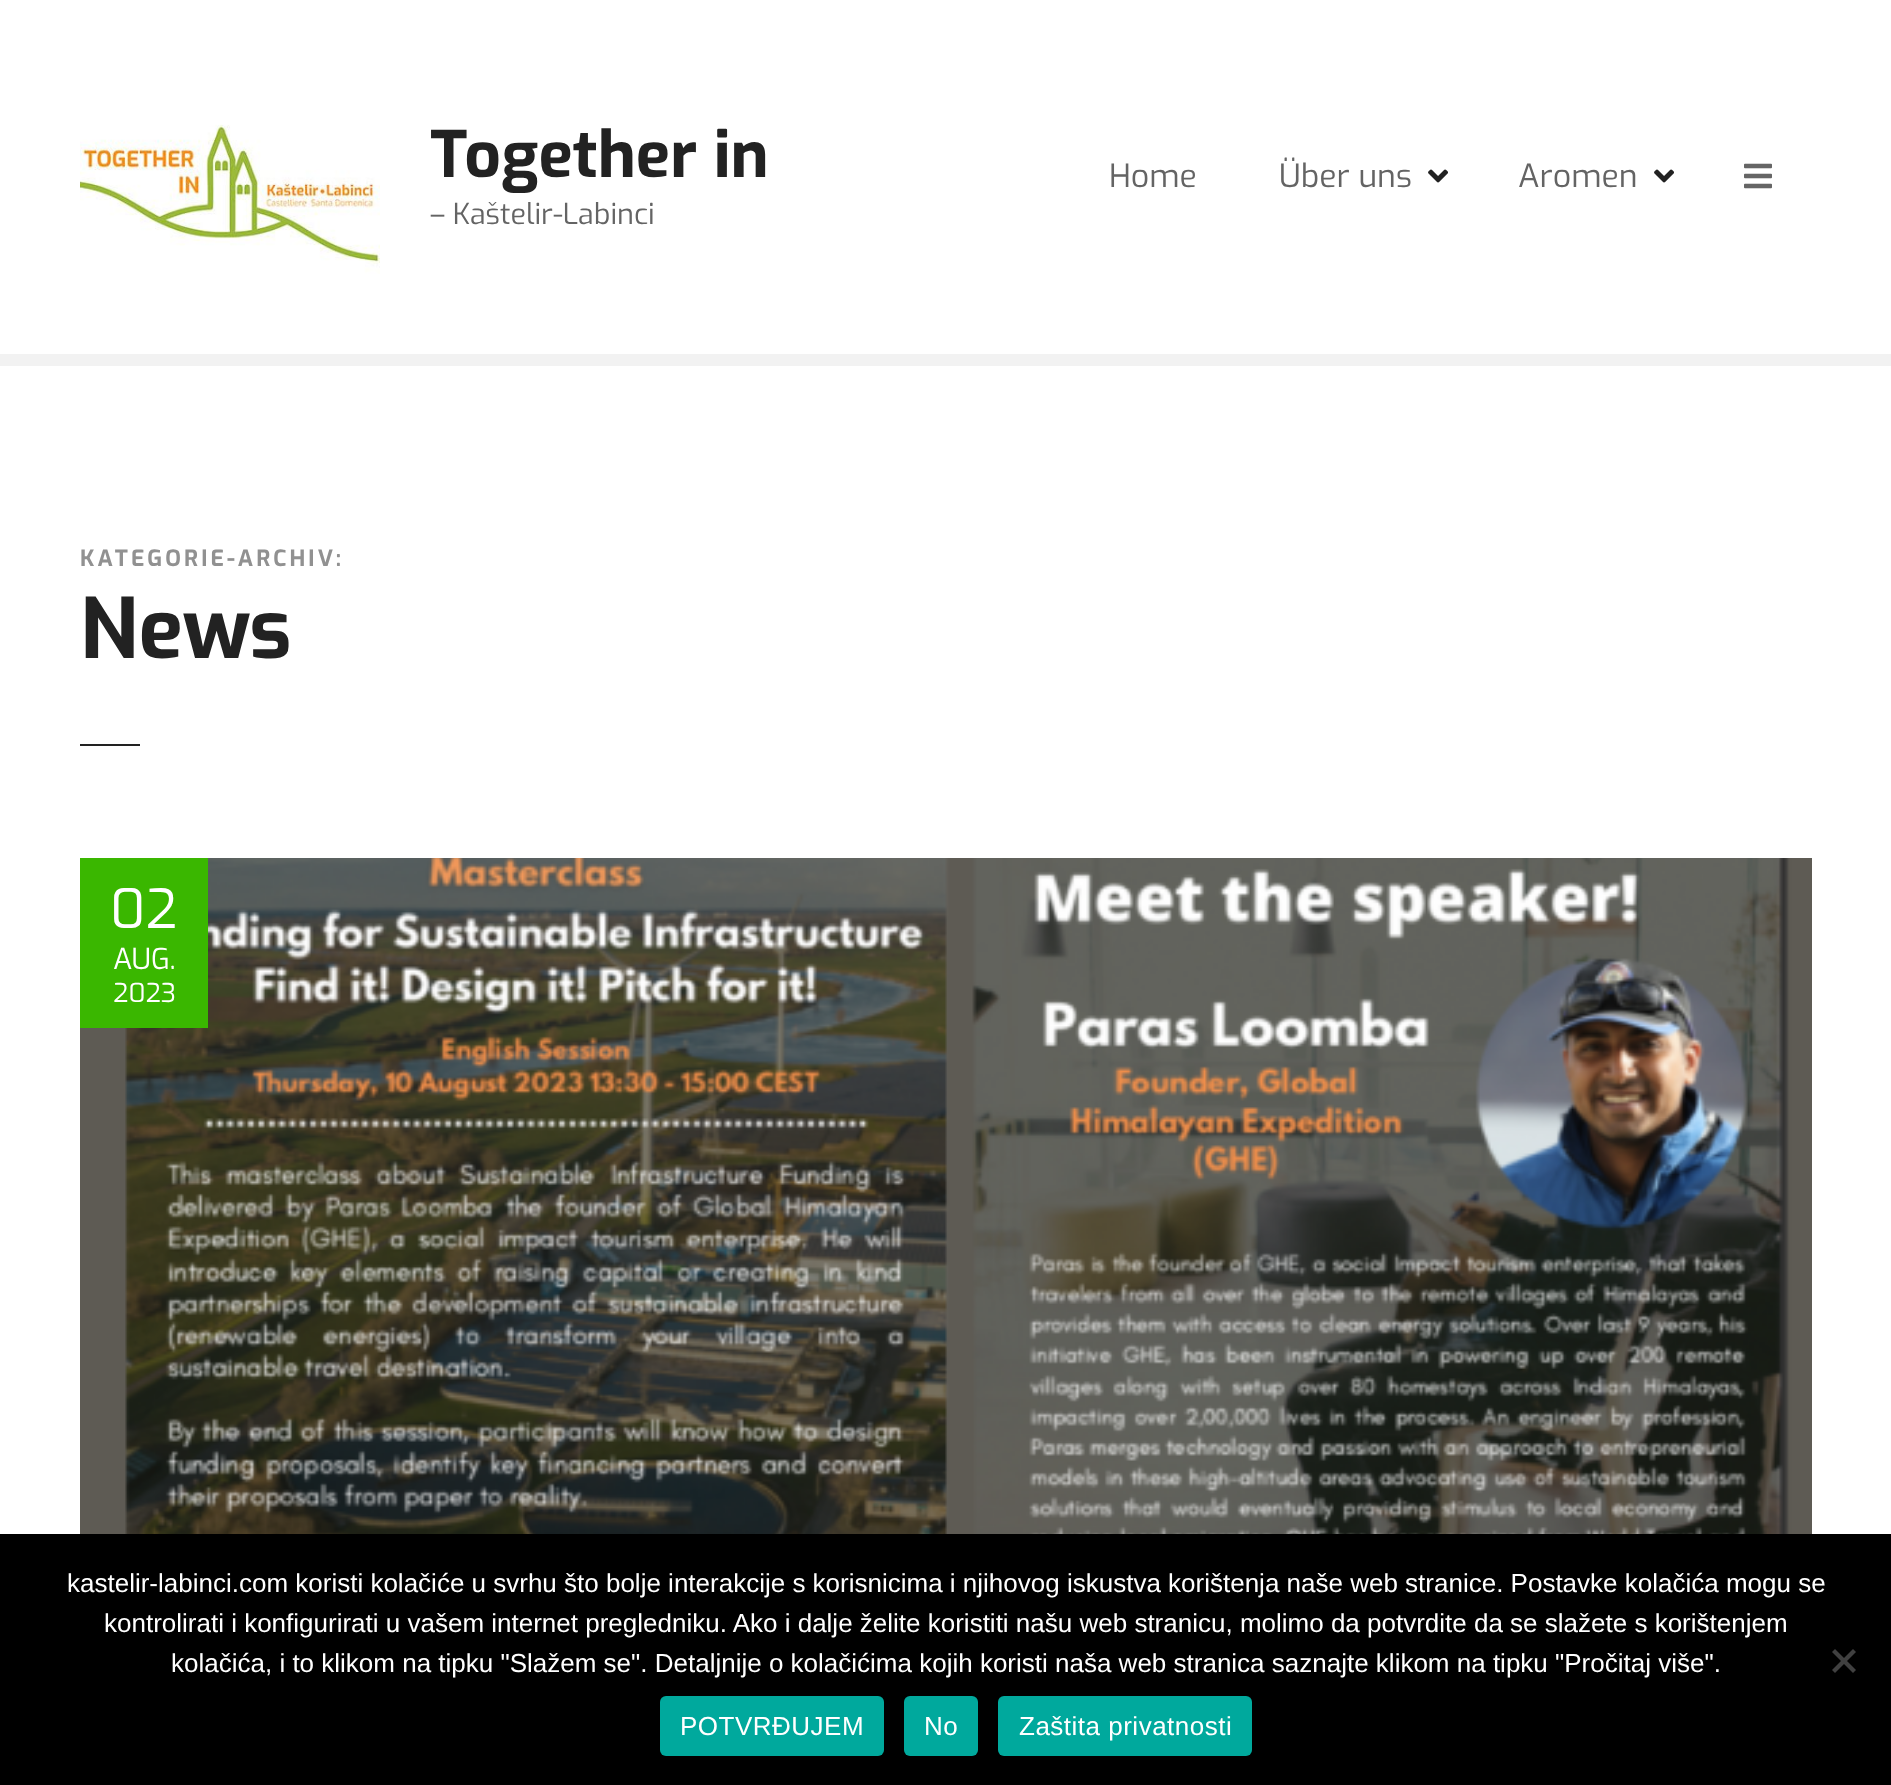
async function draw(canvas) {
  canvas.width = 1891;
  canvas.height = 1785;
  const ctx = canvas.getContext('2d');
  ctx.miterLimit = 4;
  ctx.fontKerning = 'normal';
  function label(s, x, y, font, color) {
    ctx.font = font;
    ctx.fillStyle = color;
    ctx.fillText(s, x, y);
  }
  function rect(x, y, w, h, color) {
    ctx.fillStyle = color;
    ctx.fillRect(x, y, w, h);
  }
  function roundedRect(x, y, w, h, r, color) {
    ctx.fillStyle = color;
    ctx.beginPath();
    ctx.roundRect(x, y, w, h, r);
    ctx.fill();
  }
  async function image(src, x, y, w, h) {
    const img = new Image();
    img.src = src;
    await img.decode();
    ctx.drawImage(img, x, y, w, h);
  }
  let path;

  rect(0, 0, 1891, 1785, '#fff');
  await image('assets/img1.png', 80, 124, 300, 150);
  label('Together in', 430, 177, 'bold 64px Exo', '#222');
  label('– Kaštelir-Labinci', 430, 224, '28.75px Exo', '#646464');
  label('Home', 1109, 187, '32px Exo', '#646464');
  label('Über uns', 1279, 187, '32px Exo', '#646464');
  await image('assets/img2.png', 1428, 169, 20, 14);
  label('Aromen', 1518, 187, '32px Exo', '#646464');
  await image('assets/img2.png', 1654, 169, 20, 14);
  await image('assets/img3.png', 1744, 163, 28, 26);
  rect(0, 354, 1891, 12, '#f2f2f2');
  ctx.letterSpacing = '3.1px';
  label('KATEGORIE-ARCHIV:', 80, 566, 'bold 22.4px Exo', '#919191');
  ctx.letterSpacing = '0px';
  label('News', 80, 658, 'bold 83px Exo', '#222');
  rect(80, 744, 60, 2, '#222');
  await image('assets/img4.png', 80, 858, 1732, 676);
  rect(80, 858, 128, 170, '#3ab700');
  label('02', 110, 928, '54px Exo', '#fff');
  label('AUG.', 113, 969, '28.75px Exo', '#fff');
  label('2023', 113, 1002, '26px Exo', '#fff');
  rect(0, 1534, 1891, 251, '#000');
  label('kastelir-labinci.com koristi kolačiće u svrhu što bolje interakcije s korisnicima i njihovog iskustva korištenja naše web stranice. Postavke kolačića mogu se', 67, 1592, '26px Liberation Sans', '#fff');
  label('kontrolirati i konfigurirati u vašem internet pregledniku. Ako i dalje želite koristiti našu web stranicu, molimo da potvrdite da se slažete s korištenjem', 104, 1632, '26px Liberation Sans', '#fff');
  label('kolačića, i to klikom na tipku "Slažem se". Detaljnije o kolačićima kojih koristi naša web stranica saznajte klikom na tipku "Pročitaj više".', 171, 1672, '26px Liberation Sans', '#fff');
  ctx.fillStyle = '#404040';
  path = new Path2D('M1853 1649L1856 1652L1835 1673L1832 1670Z');
  ctx.fill(path);
  path = new Path2D('M1832 1652L1835 1649L1856 1670L1853 1673Z');
  ctx.fill(path);
  roundedRect(660, 1696, 224, 60, 6, '#00a99d');
  ctx.letterSpacing = '0.5px';
  label('POTVRĐUJEM', 680, 1735, '26px Liberation Sans', '#fff');
  roundedRect(904, 1696, 74, 60, 6, '#00a99d');
  label('No', 924, 1735, '26px Liberation Sans', '#fff');
  roundedRect(998, 1696, 254, 60, 6, '#00a99d');
  label('Zaštita privatnosti', 1019, 1735, '26px Liberation Sans', '#fff');
}

draw(document.querySelector('canvas'));
